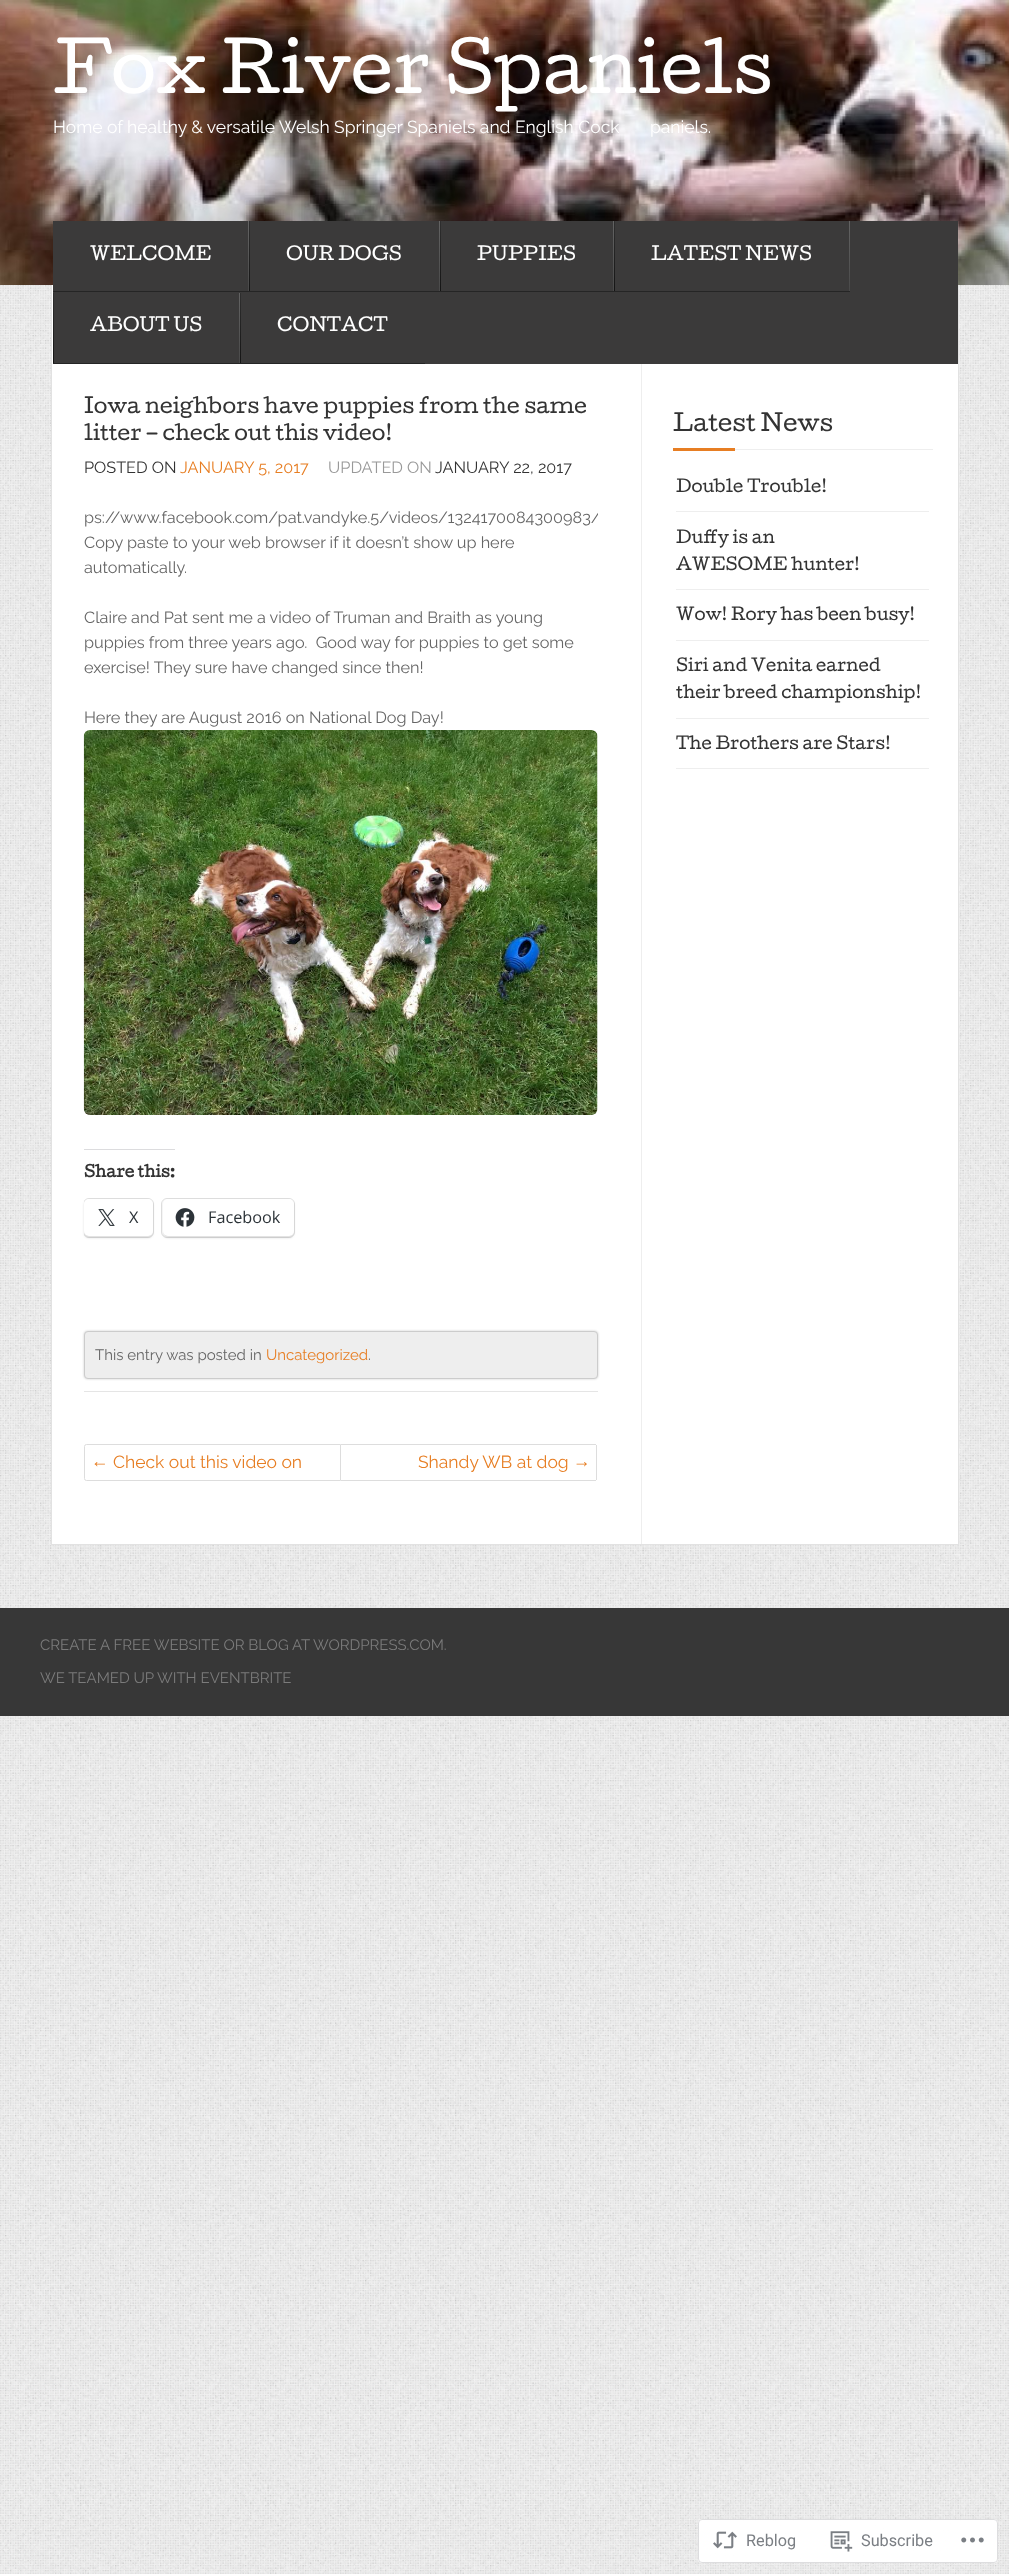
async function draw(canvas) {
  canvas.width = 1009;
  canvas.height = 2574;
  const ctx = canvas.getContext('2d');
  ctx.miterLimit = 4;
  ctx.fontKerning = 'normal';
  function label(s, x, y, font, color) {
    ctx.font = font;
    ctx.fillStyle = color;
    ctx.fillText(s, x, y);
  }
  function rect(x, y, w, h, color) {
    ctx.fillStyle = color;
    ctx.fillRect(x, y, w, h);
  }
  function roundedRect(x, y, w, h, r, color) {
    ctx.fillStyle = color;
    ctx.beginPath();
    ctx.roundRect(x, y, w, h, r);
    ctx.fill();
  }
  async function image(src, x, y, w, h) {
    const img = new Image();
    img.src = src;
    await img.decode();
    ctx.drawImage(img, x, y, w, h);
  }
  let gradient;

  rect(0, 0, 1009, 2574, '#fff');
  await image('assets/img1.png', 0, 285, 1009, 2289);
  await image('assets/img2.png', 0, 0, 1009, 285);
  label('Fox River Spaniels', 53, 93, '66.25px Cutive', '#fff');
  label('Home of healthy & versatile Welsh Springer Spaniels and English Cock', 53, 133, '17.5px Raleway', '#fff');
  label('paniels.', 650, 133, '17.5px Raleway', '#fff');
  rect(52, 285, 906, 1259, '#fff');
  rect(958, 285, 1, 1260, '#e2e2e2');
  rect(51, 1544, 908, 1, '#e2e2e2');
  rect(51, 285, 1, 1260, '#e2e2e2');
  rect(53, 221, 905, 143, '#3b3a3a');
  rect(53, 291, 797, 1, '#252525');
  label('WELCOME', 90, 260, '17.5px Cutive', '#fff');
  gradient = ctx.createLinearGradient(248, 221, 248, 291);
  gradient.addColorStop(0, '#636363');
  gradient.addColorStop(1, '#494949');
  ctx.fillStyle = gradient;
  ctx.fillRect(248, 221, 1, 70);
  gradient = ctx.createLinearGradient(249, 221, 249, 291);
  gradient.addColorStop(0, '#2f2f2f');
  gradient.addColorStop(1, '#151515');
  ctx.fillStyle = gradient;
  ctx.fillRect(249, 221, 1, 70);
  label('OUR DOGS', 286, 260, '17.5px Cutive', '#fff');
  gradient = ctx.createLinearGradient(439, 221, 439, 291);
  gradient.addColorStop(0, '#636363');
  gradient.addColorStop(1, '#494949');
  ctx.fillStyle = gradient;
  ctx.fillRect(439, 221, 1, 70);
  gradient = ctx.createLinearGradient(441, 221, 441, 291);
  gradient.addColorStop(0, '#2f2f2f');
  gradient.addColorStop(1, '#151515');
  ctx.fillStyle = gradient;
  ctx.fillRect(440, 221, 1, 70);
  label('PUPPIES', 477, 260, '17.5px Cutive', '#fff');
  gradient = ctx.createLinearGradient(613, 221, 613, 291);
  gradient.addColorStop(0, '#636363');
  gradient.addColorStop(1, '#494949');
  ctx.fillStyle = gradient;
  ctx.fillRect(613, 221, 1, 70);
  gradient = ctx.createLinearGradient(614, 221, 614, 291);
  gradient.addColorStop(0, '#2f2f2f');
  gradient.addColorStop(1, '#151515');
  ctx.fillStyle = gradient;
  ctx.fillRect(614, 221, 1, 70);
  label('LATEST NEWS', 651, 260, '17.5px Cutive', '#fff');
  gradient = ctx.createLinearGradient(849, 221, 849, 291);
  gradient.addColorStop(0, '#636363');
  gradient.addColorStop(1, '#494949');
  ctx.fillStyle = gradient;
  ctx.fillRect(849, 221, 1, 70);
  rect(53, 363, 372, 1, '#252525');
  gradient = ctx.createLinearGradient(53, 293, 53, 363);
  gradient.addColorStop(0, '#2f2f2f');
  gradient.addColorStop(1, '#151515');
  ctx.fillStyle = gradient;
  ctx.fillRect(53, 293, 1, 70);
  label('ABOUT US', 90, 331, '17.5px Cutive', '#fff');
  gradient = ctx.createLinearGradient(239, 293, 239, 363);
  gradient.addColorStop(0, '#636363');
  gradient.addColorStop(1, '#494949');
  ctx.fillStyle = gradient;
  ctx.fillRect(239, 293, 1, 70);
  gradient = ctx.createLinearGradient(241, 293, 241, 363);
  gradient.addColorStop(0, '#2f2f2f');
  gradient.addColorStop(1, '#151515');
  ctx.fillStyle = gradient;
  ctx.fillRect(240, 293, 1, 70);
  label('CONTACT', 277, 331, '17.5px Cutive', '#fff');
  rect(641, 364, 1, 1180, '#eee');
  label('Iowa neighbors have puppies from the same', 84, 413, '20px Cutive', '#333');
  label('litter – check out this video!', 84, 440, '20px Cutive', '#333');
  label('POSTED ON', 84, 473, '16.25px Raleway', '#333');
  label('JANUARY 5, 2017', 180, 473, '16.25px Raleway', '#e77e23');
  label('UPDATED ON', 328, 473, '16.25px Raleway', '#999');
  label('JANUARY 22, 2017', 435, 473, '16.25px Raleway', '#333');
  ctx.save();
  ctx.beginPath();
  ctx.rect(84, 395, 514, 936);
  ctx.clip();
  label('ps://www.facebook.com/pat.vandyke.5/videos/1324170084300983/', 84, 523, '16.25px Raleway', '#666');
  ctx.restore();
  label('Copy paste to your web browser if it doesn’t show up here', 84, 548, '16.25px Raleway', '#666');
  label('automatically.', 84, 573, '16.25px Raleway', '#666');
  label('Claire and Pat sent me a video of Truman and Braith as young', 84, 623, '16.25px Raleway', '#666');
  label('puppies from three years ago.  Good way for puppies to get some', 84, 648, '16.25px Raleway', '#666');
  label('exercise! They sure have changed since then!', 84, 673, '16.25px Raleway', '#666');
  label('Here they are August 2016 on National Dog Day!', 84, 723, '16.25px Raleway', '#666');
  await image('assets/img3.png', 83, 730, 515, 385);
  rect(84, 1149, 91, 1, '#dcdcde');
  label('Share this:', 84, 1177, 'bold 15px Cutive', '#333');
  ctx.save();
  ctx.beginPath();
  ctx.rect(84, 395, 514, 936);
  ctx.clip();
  ctx.beginPath();
  ctx.roundRect(83.5, 1198.5, 70, 39, 5.5);
  ctx.strokeStyle = '#e0e0e0';
  ctx.stroke();
  ctx.restore();
  ctx.fillStyle = '#0000001f';
  ctx.filter = 'blur(1px)';
  ctx.beginPath();
  ctx.roundRect(84, 1200, 69, 38, 5);
  ctx.fill();
  ctx.filter = 'none';
  roundedRect(84, 1199, 69, 37, 5, '#fff');
  await image('assets/img4.png', 98, 1209, 17, 17);
  label('X', 129, 1223, '16.25px Open Sans', '#2c3338');
  ctx.beginPath();
  ctx.roundRect(161.5, 1198.5, 133, 39, 5.5);
  ctx.strokeStyle = '#e0e0e0';
  ctx.stroke();
  ctx.fillStyle = '#0000001f';
  ctx.filter = 'blur(1px)';
  ctx.beginPath();
  ctx.roundRect(163, 1200, 131, 38, 5);
  ctx.fill();
  ctx.filter = 'none';
  roundedRect(163, 1199, 131, 37, 5, '#fff');
  await image('assets/img5.png', 175, 1208, 20, 19);
  label('Facebook', 208, 1223, '16.25px Open Sans', '#2c3338');
  ctx.fillStyle = '#99999980';
  ctx.filter = 'blur(1px)';
  ctx.beginPath();
  ctx.roundRect(84, 1331, 514, 48, 4);
  ctx.fill();
  ctx.filter = 'none';
  ctx.fillStyle = '#eee';
  ctx.beginPath();
  ctx.roundRect(84.5, 1331.5, 513, 47, 3.5);
  ctx.fill();
  ctx.strokeStyle = '#ccc';
  ctx.stroke();
  label('This entry was posted in', 95, 1360, '15px Raleway', '#666');
  label('Uncategorized', 266, 1360, '15px Raleway', '#e77e23');
  label('.', 368, 1360, '15px Raleway', '#666');
  rect(84, 1391, 514, 1, '#e5e5e5');
  ctx.beginPath();
  ctx.roundRect(84.5, 1444.5, 256, 36, [2, 0, 0, 2]);
  ctx.strokeStyle = '#ddd';
  ctx.stroke();
  label('←', 91, 1467, '17.5px Liberation Sans', '#e77e23');
  label('Check out this video on', 113, 1468, '17.5px Raleway', '#e77e23');
  rect(341, 1444, 255, 1, '#ddd');
  rect(596, 1445, 1, 35, '#ddd');
  rect(341, 1480, 255, 1, '#ddd');
  label('Shandy WB at dog', 418, 1468, '17.5px Raleway', '#e77e23');
  label('→', 573, 1467, '17.5px Liberation Sans', '#e77e23');
  rect(735, 449, 198, 1, '#eee');
  label('Latest News', 673, 431, '22.5px Cutive', '#333');
  rect(673, 448, 62, 3, '#e77e23');
  rect(676, 511, 253, 1, '#eee');
  label('Double Trouble!', 676, 492, '16.25px Cutive', '#333');
  rect(676, 589, 253, 1, '#eee');
  label('Duffy is an', 676, 543, '16.25px Cutive', '#333');
  label('AWESOME hunter!', 676, 570, '16.25px Cutive', '#333');
  rect(676, 640, 253, 1, '#eee');
  label('Wow! Rory has been busy!', 676, 620, '16.25px Cutive', '#333');
  rect(676, 718, 253, 1, '#eee');
  label('Siri and Venita earned', 676, 671, '16.25px Cutive', '#333');
  label('their breed championship!', 676, 698, '16.25px Cutive', '#333');
  rect(676, 768, 253, 1, '#eee');
  label('The Brothers are Stars!', 676, 749, '16.25px Cutive', '#333');
  rect(0, 1608, 1009, 108, '#373737');
  label('CREATE A FREE WEBSITE OR BLOG AT WORDPRESS.COM.', 40, 1650, '15px Raleway', '#7b7b7b');
  label('WE TEAMED UP WITH EVENTBRITE', 40, 1683, '15px Raleway', '#7b7b7b');
  roundedRect(698, 2519, 300, 44, 4, '#fffffffa');
  ctx.beginPath();
  ctx.roundRect(698.5, 2519.5, 299, 43, 3.5);
  ctx.strokeStyle = '#dcdcdefa';
  ctx.stroke();
  await image('assets/img6.png', 713, 2531, 24, 18);
  label('Reblog', 746, 2546, '16.25px Roboto', '#7b7f84');
  await image('assets/img7.png', 830, 2531, 23, 21);
  label('Subscribe', 861, 2546, '16.25px Roboto', '#7b7f84');
  await image('assets/img8.png', 961, 2537, 23, 6);
}

draw(document.querySelector('canvas'));
